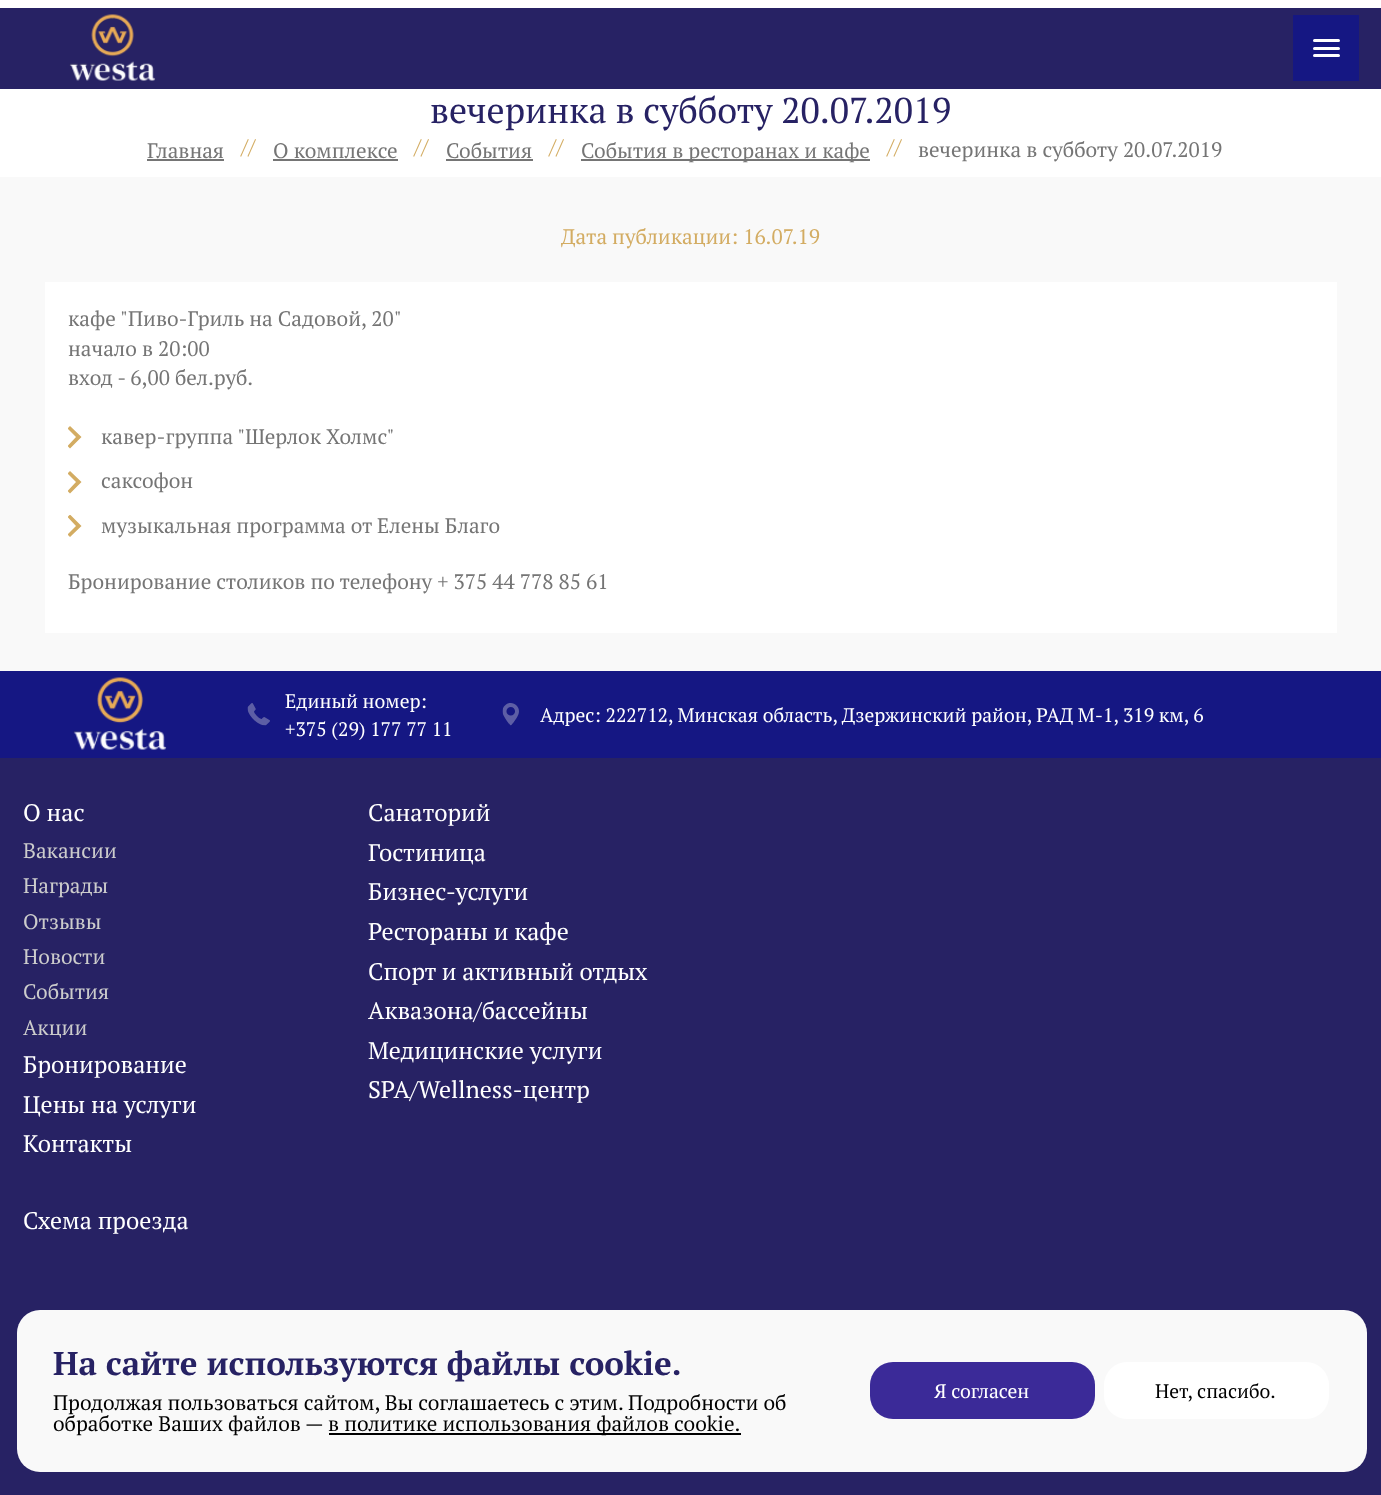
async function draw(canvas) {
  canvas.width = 1381;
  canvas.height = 1495;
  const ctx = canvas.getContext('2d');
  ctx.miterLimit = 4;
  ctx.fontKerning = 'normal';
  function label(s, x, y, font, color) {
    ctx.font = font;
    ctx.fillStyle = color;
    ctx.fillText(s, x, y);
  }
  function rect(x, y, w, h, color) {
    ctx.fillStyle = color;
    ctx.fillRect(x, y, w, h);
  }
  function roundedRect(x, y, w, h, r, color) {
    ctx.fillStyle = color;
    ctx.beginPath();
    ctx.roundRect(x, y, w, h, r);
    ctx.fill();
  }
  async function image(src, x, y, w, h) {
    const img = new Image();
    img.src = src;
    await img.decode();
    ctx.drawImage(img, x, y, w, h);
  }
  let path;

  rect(0, 0, 1381, 1495, '#f9f9f9');
  rect(0, 0, 1381, 8, '#fff');
  rect(0, 8, 1381, 81, '#272264');
  await image('assets/img1.png', 69, 14, 87, 67);
  rect(1293, 15, 66, 66, '#151783');
  roundedRect(1313, 39, 27, 3, 1.5, '#fff');
  roundedRect(1313, 47, 27, 3, 1.5, '#fff');
  roundedRect(1313, 54, 27, 3, 1.5, '#fff');
  rect(0, 89, 1381, 88, '#fff');
  label('вечеринка в субботу 20.07.2019', 430, 123, '36px PT Serif', '#272264');
  label('Главная', 147, 158, '21px PT Serif', '#757575');
  rect(147, 159, 77, 2, '#757575');
  label('//', 241, 154, '21px PT Serif', '#d3ac62');
  label('О комплексе', 273, 158, '21px PT Serif', '#757575');
  rect(273, 159, 125, 2, '#757575');
  label('//', 414, 154, '21px PT Serif', '#d3ac62');
  label('События', 446, 158, '21px PT Serif', '#757575');
  rect(446, 159, 87, 2, '#757575');
  label('//', 549, 154, '21px PT Serif', '#d3ac62');
  rect(581, 159, 289, 2, '#757575');
  label('События в ресторанах и кафе', 581, 158, '21px PT Serif', '#757575');
  label('//', 887, 154, '21px PT Serif', '#d3ac62');
  label('вечеринка в субботу 20.07.2019', 918, 157, '21px PT Serif', '#757575');
  label('Дата публикации: 16.07.19', 561, 244, '21px PT Serif', '#d3ac62');
  rect(45, 282, 1292, 351, '#fff');
  label('кафе "Пиво-Гриль на Садовой, 20"', 68, 326, '21px PT Serif', '#757575');
  label('начало в 20:00', 68, 356, '21px PT Serif', '#757575');
  label('вход - 6,00 бел.руб.', 68, 385, '21px PT Serif', '#757575');
  ctx.save();
  ctx.beginPath();
  ctx.rect(68, 426, 15, 23);
  ctx.clip();
  ctx.fillStyle = '#d3ac62';
  path = new Path2D('M67.5 446L76 437L67.5 428.5L70 426L81.5 437L70 448.5Z');
  ctx.fill(path);
  ctx.restore();
  label('кавер-группа "Шерлок Холмс"', 101, 444, '21px PT Serif', '#757575');
  ctx.save();
  ctx.beginPath();
  ctx.rect(68, 471, 15, 23);
  ctx.clip();
  ctx.fillStyle = '#d3ac62';
  path = new Path2D('M67.5 491L76 482L67.5 473.5L70 471L81.5 482L70 493.5Z');
  ctx.fill(path);
  ctx.restore();
  label('саксофон', 101, 488, '21px PT Serif', '#757575');
  ctx.save();
  ctx.beginPath();
  ctx.rect(68, 515, 15, 22);
  ctx.clip();
  ctx.fillStyle = '#d3ac62';
  path = new Path2D('M67.5 534.5L76 526L67.5 517L70 514.5L81.5 526L70 537Z');
  ctx.fill(path);
  ctx.restore();
  label('музыкальная программа от Елены Благо', 101, 533, '21px PT Serif', '#757575');
  label('Бронирование столиков по телефону + 375 44 778 85 61', 68, 589, '21px PT Serif', '#757575');
  rect(0, 671, 1381, 87, '#151783');
  await image('assets/img2.png', 73, 677, 94, 73);
  await image('assets/img3.png', 247, 703, 23, 23);
  label('Единый номер:', 285, 708, '19.5px PT Serif', '#fff');
  label('+375 (29) 177 77 11', 285, 736, '19.5px PT Serif', '#fff');
  await image('assets/img4.png', 502, 703, 17, 23);
  label('Адрес: 222712, Минская область, Дзержинский район, РАД М-1, 319 км, 6', 540, 722, '19.5px PT Serif', '#fff');
  rect(0, 758, 1381, 737, '#272264');
  label('О нас', 23, 821, '24px PT Serif', '#fff');
  label('Вакансии', 23, 858, '21px PT Serif', '#ccc');
  label('Награды', 23, 893, '21px PT Serif', '#ccc');
  label('Отзывы', 23, 929, '21px PT Serif', '#ccc');
  label('Новости', 23, 964, '21px PT Serif', '#ccc');
  label('События', 23, 999, '21px PT Serif', '#ccc');
  label('Акции', 23, 1035, '21px PT Serif', '#ccc');
  label('Бронирование', 23, 1073, '24px PT Serif', '#fff');
  label('Цены на услуги', 23, 1113, '24px PT Serif', '#fff');
  label('Контакты', 23, 1152, '24px PT Serif', '#fff');
  label('Санаторий', 368, 821, '24px PT Serif', '#fff');
  label('Гостиница', 368, 861, '24px PT Serif', '#fff');
  label('Бизнес-услуги', 368, 900, '24px PT Serif', '#fff');
  label('Рестораны и кафе', 368, 940, '24px PT Serif', '#fff');
  label('Спорт и активный отдых', 368, 980, '24px PT Serif', '#fff');
  label('Аквазона/бассейны', 368, 1019, '24px PT Serif', '#fff');
  label('Медицинские услуги', 368, 1059, '24px PT Serif', '#fff');
  label('SPA/Wellness-центр', 368, 1098, '24px PT Serif', '#fff');
  label('Схема проезда', 23, 1229, '24px PT Serif', '#fff');
  roundedRect(17, 1310, 1350, 162, 23, '#f9f9f9');
  label('На сайте используются файлы cookie.', 53, 1375, 'bold 33px PT Serif', '#272264');
  label('Продолжая пользоваться сайтом, Вы соглашаетесь с этим. Подробности об', 53, 1410, '21px PT Serif', '#000');
  label('обработке Ваших файлов —', 53, 1431, '21px PT Serif', '#000');
  rect(329, 1433, 412, 2, '#000');
  label('в политике использования файлов cookie.', 328, 1431, '21px PT Serif', '#000');
  roundedRect(870, 1362, 225, 57, 23, '#3b2a98');
  label('Я согласен', 934, 1398, '19.5px PT Serif', '#fff');
  roundedRect(1104, 1362, 225, 57, 23, '#fff');
  label('Нет, спасибо.', 1155, 1398, '19.5px PT Serif', '#000');
}

draw(document.querySelector('canvas'));
